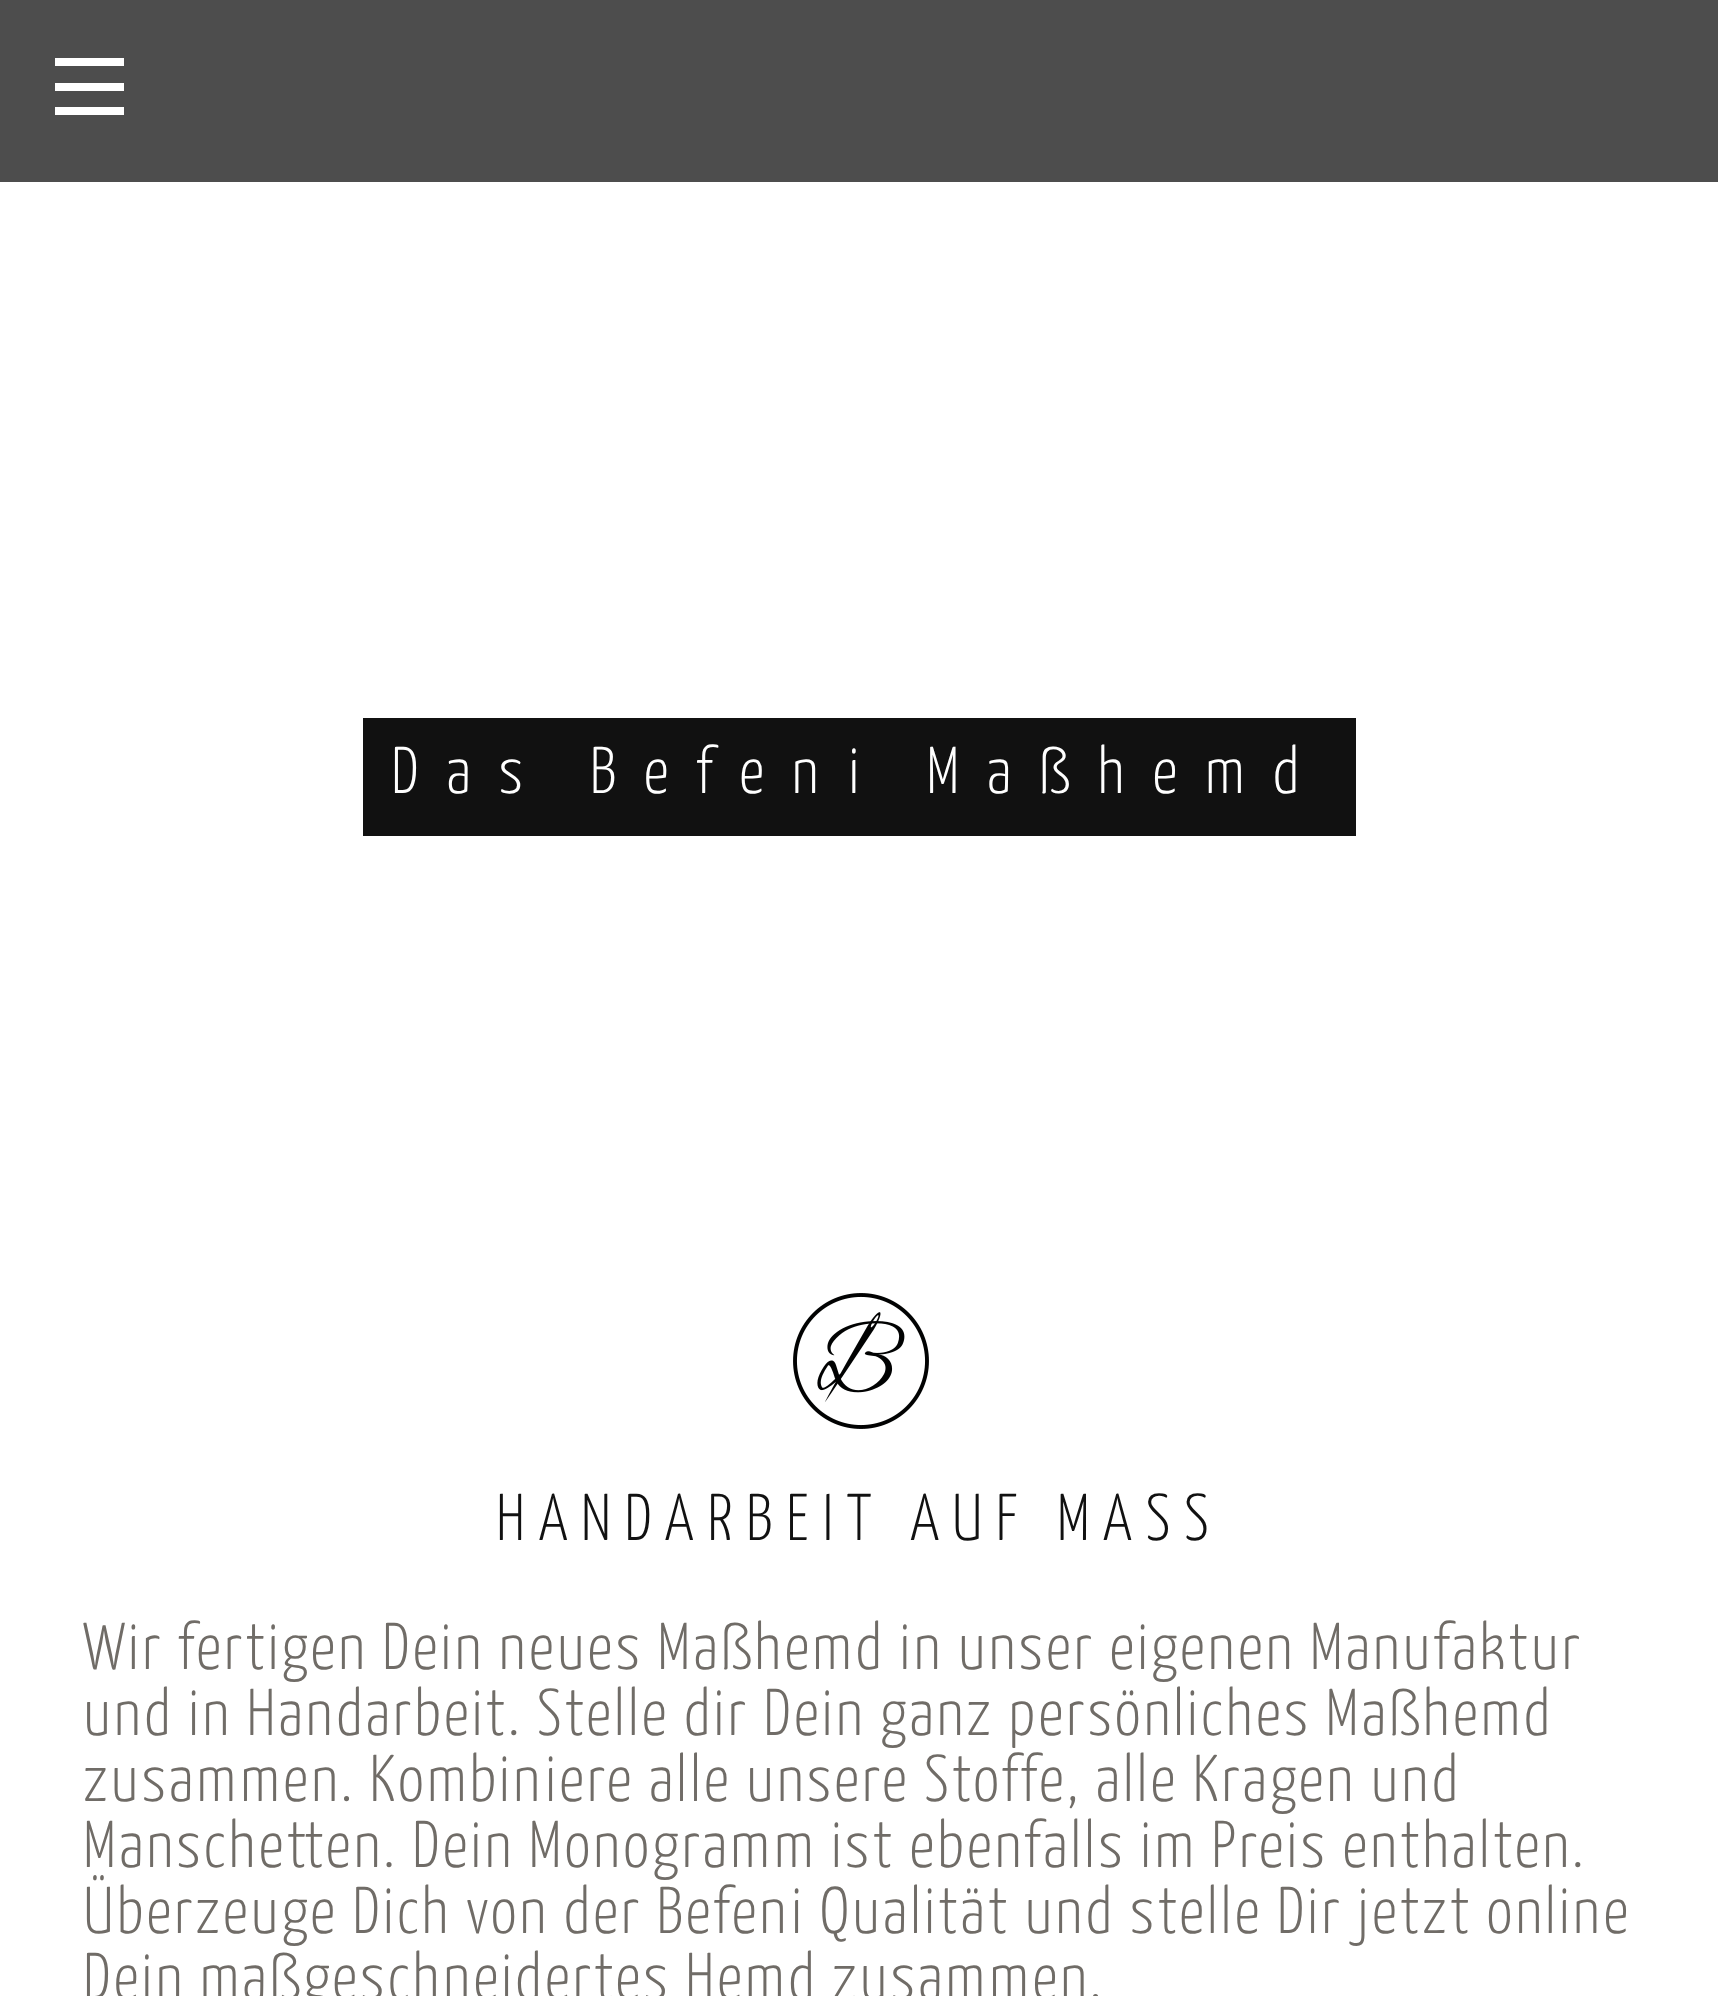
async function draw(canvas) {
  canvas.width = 1718;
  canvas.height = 1996;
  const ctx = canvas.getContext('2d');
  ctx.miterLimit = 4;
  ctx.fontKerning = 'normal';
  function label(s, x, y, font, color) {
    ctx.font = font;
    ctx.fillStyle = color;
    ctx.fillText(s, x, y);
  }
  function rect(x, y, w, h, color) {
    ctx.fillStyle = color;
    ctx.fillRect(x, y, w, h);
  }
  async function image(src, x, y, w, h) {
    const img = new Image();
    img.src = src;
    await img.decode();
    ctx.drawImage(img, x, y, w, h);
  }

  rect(0, 0, 1718, 1996, '#fff');
  rect(0, 0, 1718, 182, '#4d4d4d');
  rect(55, 58, 69, 8, '#fff');
  rect(55, 83, 69, 8, '#fff');
  rect(55, 107, 69, 8, '#fff');
  rect(363, 718, 993, 118, '#111');
  ctx.letterSpacing = '27.5px';
  label('Das Befeni Maßhemd', 391, 793, '300 66px Yanone Kaffeesatz', '#fff');
  await image('assets/img1.png', 793, 1293, 136, 136);
  ctx.letterSpacing = '13.75px';
  label('HANDARBEIT AUF MASS', 496, 1540, '300 66px Yanone Kaffeesatz', '#111');
  ctx.letterSpacing = '2.75px';
  label('Wir fertigen Dein neues Maßhemd in unser eigenen Manufaktur', 83, 1669, '300 66px Yanone Kaffeesatz', '#706c67');
  label('und in Handarbeit. Stelle dir Dein ganz persönliches Maßhemd', 83, 1735, '300 66px Yanone Kaffeesatz', '#706c67');
  label('zusammen. Kombiniere alle unsere Stoffe, alle Kragen und', 83, 1801, '300 66px Yanone Kaffeesatz', '#706c67');
  label('Manschetten. Dein Monogramm ist ebenfalls im Preis enthalten.', 83, 1867, '300 66px Yanone Kaffeesatz', '#706c67');
  label('Überzeuge Dich von der Befeni Qualität und stelle Dir jetzt online', 83, 1933, '300 66px Yanone Kaffeesatz', '#706c67');
  label('Dein maßgeschneidertes Hemd zusammen.', 83, 1999, '300 66px Yanone Kaffeesatz', '#706c67');
}

draw(document.querySelector('canvas'));
